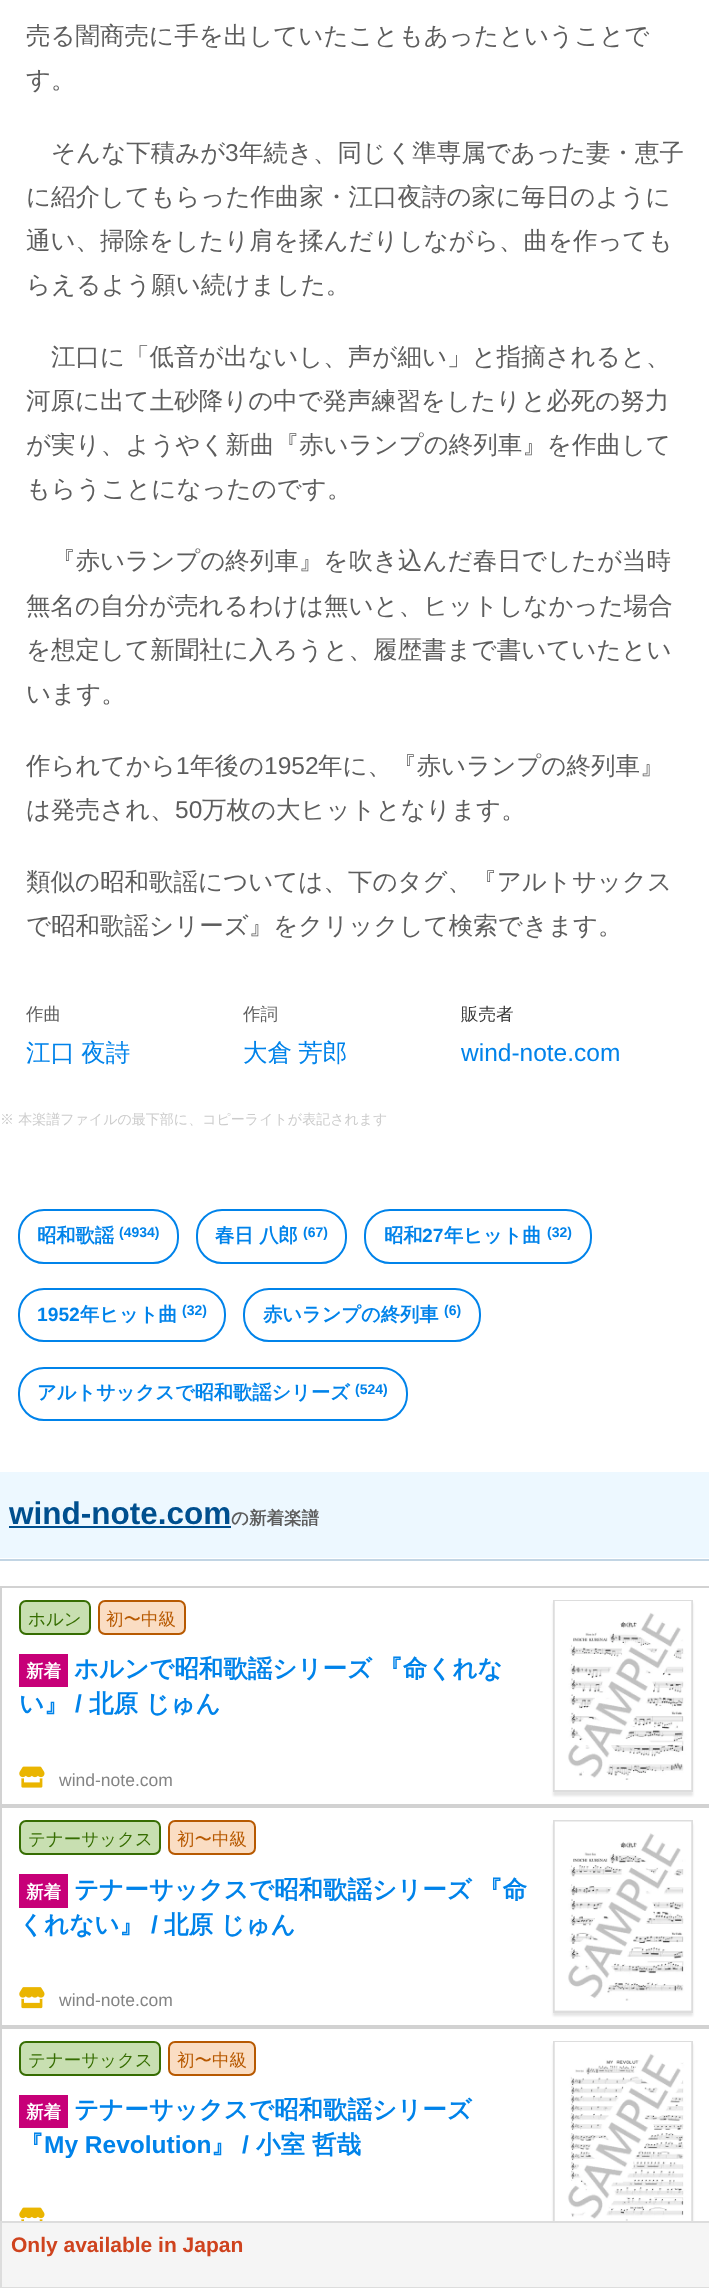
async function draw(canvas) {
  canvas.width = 709;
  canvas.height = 2288;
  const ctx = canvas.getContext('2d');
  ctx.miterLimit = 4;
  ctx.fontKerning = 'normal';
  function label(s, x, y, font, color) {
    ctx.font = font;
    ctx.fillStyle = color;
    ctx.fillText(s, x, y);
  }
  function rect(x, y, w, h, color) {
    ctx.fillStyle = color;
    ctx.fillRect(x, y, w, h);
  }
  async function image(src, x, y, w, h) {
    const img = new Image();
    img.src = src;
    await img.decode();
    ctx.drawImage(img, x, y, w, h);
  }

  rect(0, 0, 709, 2288, '#fff');
  label('売る闇商売に手を出していたこともあったということで', 26, 44, '500 24.5px WenQuanYi Zen Hei', '#5d5d5d');
  label('す。', 26, 88, '500 24.5px WenQuanYi Zen Hei', '#5d5d5d');
  label('そんな下積みが', 51, 161, '500 24.5px WenQuanYi Zen Hei', '#5d5d5d');
  label('3', 225, 161, '24.5px Liberation Sans', '#5d5d5d');
  label('年続き、同じく準専属であった妻・恵子', 239, 161, '500 24.5px WenQuanYi Zen Hei', '#5d5d5d');
  label('に紹介してもらった作曲家・江口夜詩の家に毎日のように', 26, 205, '500 24.5px WenQuanYi Zen Hei', '#5d5d5d');
  label('通い、掃除をしたり肩を揉んだりしながら、曲を作っても', 26, 249, '500 24.5px WenQuanYi Zen Hei', '#5d5d5d');
  label('らえるよう願い続けました。', 26, 293, '500 24.5px WenQuanYi Zen Hei', '#5d5d5d');
  label('江口に「低音が出ないし、声が細い」と指摘されると、', 51, 365, '500 24.5px WenQuanYi Zen Hei', '#5d5d5d');
  label('河原に出て土砂降りの中で発声練習をしたりと必死の努力', 26, 409, '500 24.5px WenQuanYi Zen Hei', '#5d5d5d');
  label('が実り、ようやく新曲『赤いランプの終列車』を作曲して', 26, 453, '500 24.5px WenQuanYi Zen Hei', '#5d5d5d');
  label('もらうことになったのです。', 26, 497, '500 24.5px WenQuanYi Zen Hei', '#5d5d5d');
  label('『赤いランプの終列車』を吹き込んだ春日でしたが当時', 51, 569, '500 24.5px WenQuanYi Zen Hei', '#5d5d5d');
  label('無名の自分が売れるわけは無いと、ヒットしなかった場合', 26, 614, '500 24.5px WenQuanYi Zen Hei', '#5d5d5d');
  label('を想定して新聞社に入ろうと、履歴書まで書いていたとい', 26, 658, '500 24.5px WenQuanYi Zen Hei', '#5d5d5d');
  label('います。', 26, 702, '500 24.5px WenQuanYi Zen Hei', '#5d5d5d');
  label('作られてから', 26, 774, '500 24.5px WenQuanYi Zen Hei', '#5d5d5d');
  label('1', 176, 774, '24.5px Liberation Sans', '#5d5d5d');
  label('年後の', 190, 774, '500 24.5px WenQuanYi Zen Hei', '#5d5d5d');
  label('1952', 264, 774, '24.5px Liberation Sans', '#5d5d5d');
  label('年に、『赤いランプの終列車』', 318, 774, '500 24.5px WenQuanYi Zen Hei', '#5d5d5d');
  label('は発売され、', 26, 818, '500 24.5px WenQuanYi Zen Hei', '#5d5d5d');
  label('50', 175, 818, '24.5px Liberation Sans', '#5d5d5d');
  label('万枚の大ヒットとなります。', 202, 818, '500 24.5px WenQuanYi Zen Hei', '#5d5d5d');
  label('類似の昭和歌謡については、下のタグ、『アルトサックス', 26, 890, '500 24.5px WenQuanYi Zen Hei', '#5d5d5d');
  label('で昭和歌謡シリーズ』をクリックして検索できます。', 26, 934, '500 24.5px WenQuanYi Zen Hei', '#5d5d5d');
  label('作曲', 26, 1020, '500 17.5px WenQuanYi Zen Hei', '#5d5d5d');
  ctx.wordSpacing = '-1px';
  label('江口 夜詩', 26, 1061, '500 24.5px WenQuanYi Zen Hei', '#0083ea');
  ctx.wordSpacing = '0px';
  label('作詞', 243, 1020, '500 17.5px WenQuanYi Zen Hei', '#5d5d5d');
  ctx.wordSpacing = '-1px';
  label('大倉 芳郎', 243, 1061, '500 24.5px WenQuanYi Zen Hei', '#0083ea');
  ctx.wordSpacing = '0px';
  label('販売者', 461, 1020, '500 17.5px WenQuanYi Zen Hei', '#333');
  label('wind-note.com', 461, 1061, '24.5px Liberation Sans', '#0083ea');
  label('※ 本楽譜ファイルの最下部に、コピーライトが表記されます', 0, 1124, '500 14px WenQuanYi Zen Hei', '#ccc');
  ctx.beginPath();
  ctx.roundRect(19, 1210, 159, 53, 25);
  ctx.strokeStyle = '#0083ea';
  ctx.lineWidth = 2;
  ctx.stroke();
  label('昭和歌謡', 37, 1242, 'bold 19.25px WenQuanYi Zen Hei', '#0083ea');
  label('(4934)', 119, 1237, 'bold 14px Liberation Sans', '#0083ea');
  ctx.beginPath();
  ctx.roundRect(197, 1210, 149, 53, 25);
  ctx.stroke();
  label('春日 八郎', 215, 1242, 'bold 19.25px WenQuanYi Zen Hei', '#0083ea');
  label('(67)', 303, 1237, 'bold 14px Liberation Sans', '#0083ea');
  ctx.beginPath();
  ctx.roundRect(365, 1210, 226, 53, 25);
  ctx.stroke();
  label('昭和', 384, 1242, 'bold 19.25px WenQuanYi Zen Hei', '#0083ea');
  label('27', 422, 1242, 'bold 19.25px Liberation Sans', '#0083ea');
  label('年ヒット曲', 444, 1242, 'bold 19.25px WenQuanYi Zen Hei', '#0083ea');
  label('(32)', 547, 1237, 'bold 14px Liberation Sans', '#0083ea');
  ctx.beginPath();
  ctx.roundRect(19, 1289, 206, 52, 25);
  ctx.stroke();
  label('1952', 37, 1321, 'bold 19.25px Liberation Sans', '#0083ea');
  label('年ヒット曲', 80, 1321, 'bold 19.25px WenQuanYi Zen Hei', '#0083ea');
  label('(32)', 182, 1315, 'bold 14px Liberation Sans', '#0083ea');
  ctx.beginPath();
  ctx.roundRect(244, 1289, 236, 52, 25);
  ctx.stroke();
  label('赤いランプの終列車', 263, 1321, 'bold 19.25px WenQuanYi Zen Hei', '#0083ea');
  label('(6)', 444, 1315, 'bold 14px Liberation Sans', '#0083ea');
  ctx.beginPath();
  ctx.roundRect(19, 1368, 388, 52, 25);
  ctx.stroke();
  label('アルトサックスで昭和歌謡シリーズ', 37, 1399, 'bold 19.25px WenQuanYi Zen Hei', '#0083ea');
  label('(524)', 355, 1394, 'bold 14px Liberation Sans', '#0083ea');
  rect(0, 1472, 709, 86, '#edf8ff');
  label('wind-note.com', 9, 1524, 'bold 31.5px Liberation Sans', '#004f8e');
  rect(9, 1526, 222, 2, '#004f8e');
  label('の新着楽譜', 231, 1524, 'bold 17.5px WenQuanYi Zen Hei', '#5d5d5d');
  rect(0, 1559, 709, 2, '#c2d5e4');
  rect(0, 1586, 709, 2, '#d2d2d2');
  rect(0, 1804, 709, 4, '#d2d2d2');
  rect(0, 1586, 2, 220, '#d2d2d2');
  ctx.fillStyle = '#c8dfb1';
  ctx.beginPath();
  ctx.roundRect(20, 1601, 70, 33, 6);
  ctx.fill();
  ctx.strokeStyle = '#366d02';
  ctx.stroke();
  label('ホルン', 28, 1625, '500 17.5px WenQuanYi Zen Hei', '#366d02');
  ctx.fillStyle = '#faddc3';
  ctx.beginPath();
  ctx.roundRect(99, 1601, 86, 33, 6);
  ctx.fill();
  ctx.strokeStyle = '#b75901';
  ctx.stroke();
  label('初〜中級', 106, 1625, '500 17.5px WenQuanYi Zen Hei', '#b75901');
  ctx.fillStyle = '#0000001a';
  ctx.filter = 'blur(1px)';
  ctx.beginPath();
  ctx.rect(553, 1603, 140, 193);
  ctx.fill();
  ctx.filter = 'none';
  ctx.strokeStyle = '#ddd';
  ctx.strokeRect(554, 1601, 138, 190);
  await image('assets/img1.png', 554, 1601, 138, 189);
  rect(19, 1654, 49, 33, '#c70078');
  label('新着', 26, 1677, 'bold 17.5px WenQuanYi Zen Hei', '#fff');
  ctx.wordSpacing = '-1px';
  label('ホルンで昭和歌謡シリーズ 『命くれな', 74, 1677, 'bold 24.5px WenQuanYi Zen Hei', '#0083ea');
  ctx.wordSpacing = '0px';
  label('い』', 19, 1712, 'bold 24.5px WenQuanYi Zen Hei', '#0083ea');
  label('/', 75, 1712, 'bold 24.5px Liberation Sans', '#0083ea');
  label('北原 じゅん', 89, 1712, 'bold 24.5px WenQuanYi Zen Hei', '#0083ea');
  await image('assets/img2.png', 19, 1766, 26, 22);
  label('wind-note.com', 59, 1786, '17.5px Liberation Sans', '#848484');
  rect(0, 2025, 709, 4, '#d2d2d2');
  rect(0, 1806, 2, 415, '#d2d2d2');
  ctx.fillStyle = '#c8dfb1';
  ctx.beginPath();
  ctx.roundRect(20, 1821, 140, 33, 6);
  ctx.fill();
  ctx.strokeStyle = '#366d02';
  ctx.stroke();
  label('テナーサックス', 28, 1845, '500 17.5px WenQuanYi Zen Hei', '#366d02');
  ctx.fillStyle = '#faddc3';
  ctx.beginPath();
  ctx.roundRect(169, 1821, 86, 33, 6);
  ctx.fill();
  ctx.strokeStyle = '#b75901';
  ctx.stroke();
  label('初〜中級', 177, 1845, '500 17.5px WenQuanYi Zen Hei', '#b75901');
  ctx.fillStyle = '#0000001a';
  ctx.filter = 'blur(1px)';
  ctx.beginPath();
  ctx.rect(553, 1824, 140, 192);
  ctx.fill();
  ctx.filter = 'none';
  ctx.strokeStyle = '#ddd';
  ctx.strokeRect(554, 1821, 138, 191);
  await image('assets/img3.png', 554, 1821, 138, 190);
  rect(19, 1874, 49, 34, '#c70078');
  label('新着', 26, 1898, 'bold 17.5px WenQuanYi Zen Hei', '#fff');
  ctx.wordSpacing = '-1px';
  label('テナーサックスで昭和歌謡シリーズ 『命', 74, 1898, 'bold 24.5px WenQuanYi Zen Hei', '#0083ea');
  ctx.wordSpacing = '0px';
  label('くれない』', 19, 1933, 'bold 24.5px WenQuanYi Zen Hei', '#0083ea');
  label('/', 151, 1933, 'bold 24.5px Liberation Sans', '#0083ea');
  label('北原 じゅん', 164, 1933, 'bold 24.5px WenQuanYi Zen Hei', '#0083ea');
  await image('assets/img4.png', 19, 1987, 26, 22);
  label('wind-note.com', 59, 2006, '17.5px Liberation Sans', '#848484');
  ctx.fillStyle = '#c8dfb1';
  ctx.beginPath();
  ctx.roundRect(20, 2042, 140, 33, 6);
  ctx.fill();
  ctx.strokeStyle = '#366d02';
  ctx.stroke();
  label('テナーサックス', 28, 2066, '500 17.5px WenQuanYi Zen Hei', '#366d02');
  ctx.fillStyle = '#faddc3';
  ctx.beginPath();
  ctx.roundRect(169, 2042, 86, 33, 6);
  ctx.fill();
  ctx.strokeStyle = '#b75901';
  ctx.stroke();
  label('初〜中級', 177, 2066, '500 17.5px WenQuanYi Zen Hei', '#b75901');
  ctx.fillStyle = '#0000001a';
  ctx.filter = 'blur(1px)';
  ctx.beginPath();
  ctx.rect(553, 2044, 140, 193);
  ctx.fill();
  ctx.filter = 'none';
  ctx.strokeStyle = '#ddd';
  ctx.strokeRect(554, 2042, 138, 190);
  await image('assets/img5.png', 554, 2042, 138, 179);
  rect(19, 2095, 49, 33, '#c70078');
  label('新着', 26, 2118, 'bold 17.5px WenQuanYi Zen Hei', '#fff');
  label('テナーサックスで昭和歌謡シリーズ', 74, 2118, 'bold 24.5px WenQuanYi Zen Hei', '#0083ea');
  label('『', 19, 2153, 'bold 24.5px WenQuanYi Zen Hei', '#0083ea');
  label('My Revolution', 44, 2153, 'bold 24.5px Liberation Sans', '#0083ea');
  label('』', 211, 2153, 'bold 24.5px WenQuanYi Zen Hei', '#0083ea');
  label('/', 242, 2153, 'bold 24.5px Liberation Sans', '#0083ea');
  label('小室', 256, 2153, 'bold 24.5px WenQuanYi Zen Hei', '#0083ea');
  label('哲哉', 312, 2153, 'bold 24.5px WenQuanYi Zen Hei', '#0083ea');
  await image('assets/img6.png', 19, 2207, 26, 14);
  ctx.fillStyle = '#f5f5f5';
  ctx.beginPath();
  ctx.rect(1, 2222, 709, 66);
  ctx.fill();
  ctx.stroke();
  label('Only available in Japan', 11, 2252, 'bold 21px Liberation Sans', '#cf431e');
}

draw(document.querySelector('canvas'));
